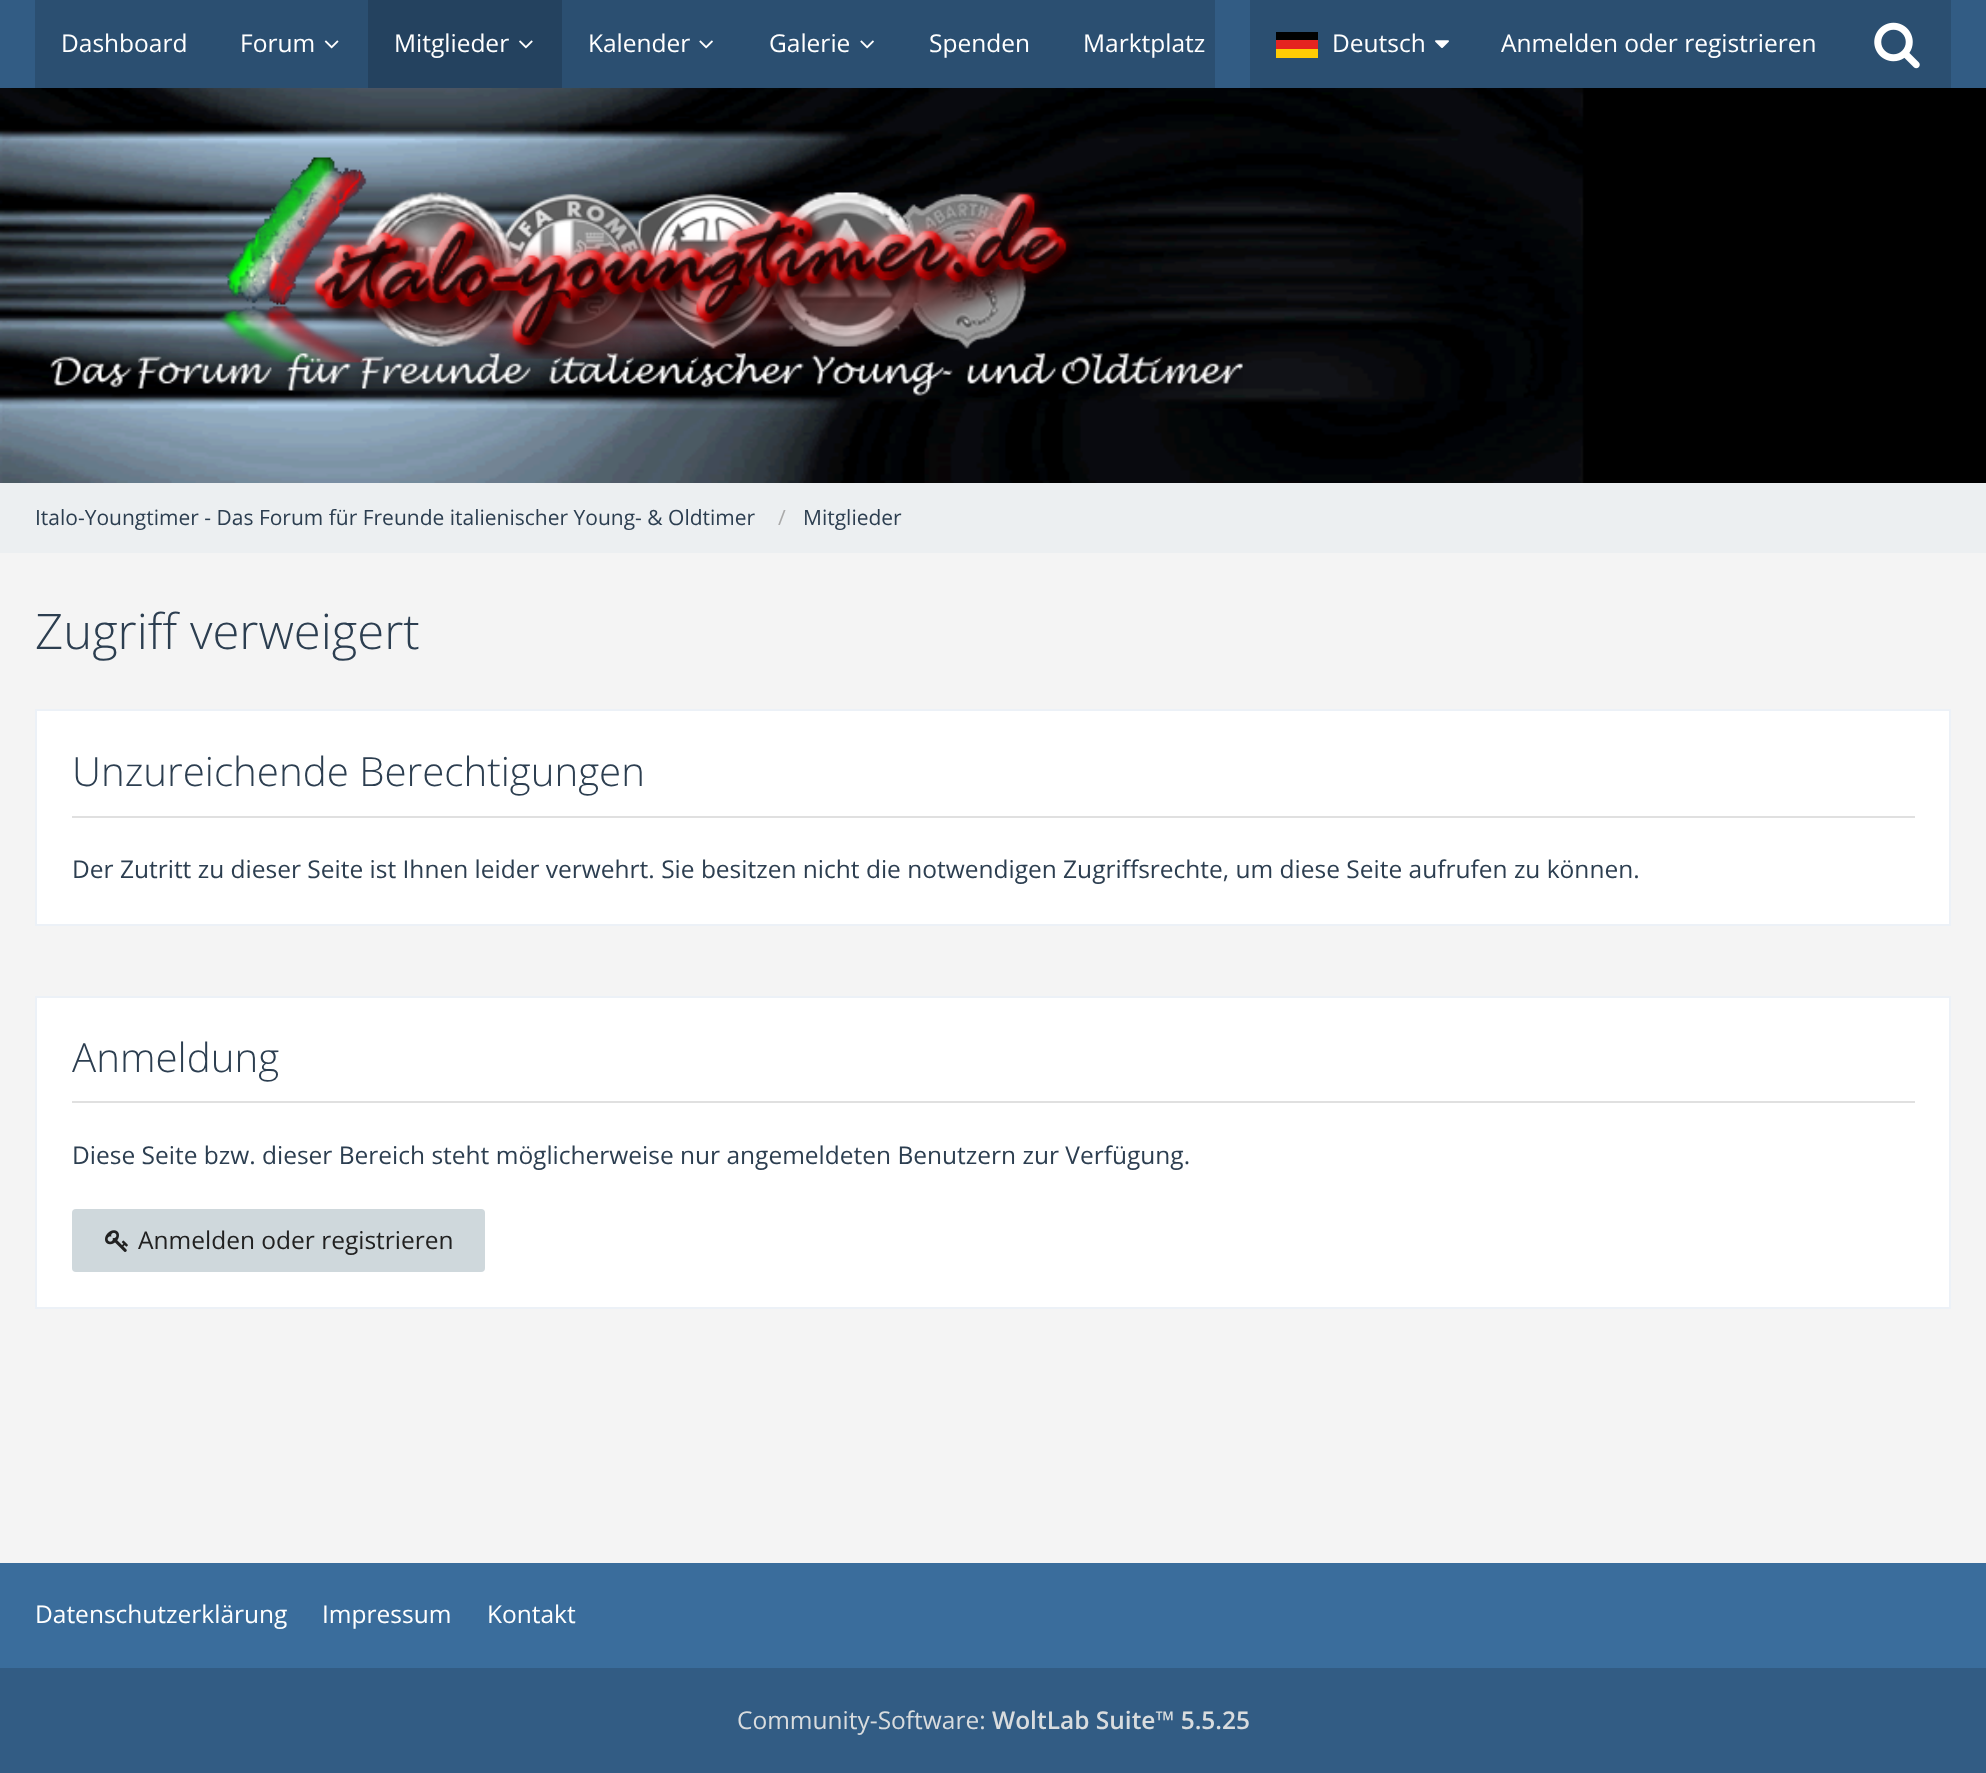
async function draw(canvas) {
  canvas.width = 1986;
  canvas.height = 1773;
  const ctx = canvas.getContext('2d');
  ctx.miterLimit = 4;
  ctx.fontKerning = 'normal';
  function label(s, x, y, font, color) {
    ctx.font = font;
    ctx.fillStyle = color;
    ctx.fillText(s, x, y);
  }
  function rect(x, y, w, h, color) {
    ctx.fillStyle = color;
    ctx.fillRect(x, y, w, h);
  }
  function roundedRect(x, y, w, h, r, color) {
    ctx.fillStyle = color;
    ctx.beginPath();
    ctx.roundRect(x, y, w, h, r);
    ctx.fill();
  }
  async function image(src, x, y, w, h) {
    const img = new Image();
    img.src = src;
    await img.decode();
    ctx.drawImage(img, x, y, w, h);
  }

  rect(0, 0, 1986, 1773, '#f4f4f4');
  await image('assets/img1.png', 0, 88, 1986, 395);
  rect(0, 0, 1986, 88, '#325c84');
  rect(35, 0, 333, 88, '#2b4f71');
  label('Dashboard', 61, 52, '24.5px Open Sans', '#fff');
  label('Forum', 240, 52, '24.5px Open Sans', '#fff');
  await image('assets/img2.png', 324, 40, 15, 9);
  rect(368, 0, 194, 88, '#24425f');
  label('Mitglieder', 394, 52, '24.5px Open Sans', '#fff');
  await image('assets/img3.png', 519, 40, 14, 9);
  rect(562, 0, 653, 88, '#2b4f71');
  label('Kalender', 588, 52, '24.5px Open Sans', '#fff');
  await image('assets/img4.png', 699, 40, 14, 9);
  label('Galerie', 769, 52, '24.5px Open Sans', '#fff');
  await image('assets/img4.png', 860, 40, 14, 9);
  label('Spenden', 929, 52, '24.5px Open Sans', '#fff');
  label('Marktplatz', 1083, 52, '24.5px Open Sans', '#fff');
  rect(1250, 0, 701, 88, '#2b4f71');
  rect(1276, 32, 42, 8, '#010202');
  rect(1276, 49, 42, 9, '#ffcc04');
  rect(1276, 40, 42, 9, '#e52420');
  label('Deutsch', 1332, 52, '24.5px Open Sans', '#fff');
  await image('assets/img5.png', 1435, 40, 14, 8);
  label('Anmelden oder registrieren', 1501, 52, '24.5px Open Sans', '#fff');
  await image('assets/img6.png', 1874, 22, 46, 47);
  await image('assets/img7.png', 50, 157, 1193, 239);
  rect(0, 483, 1986, 70, '#eceff1');
  label('Italo-Youngtimer - Das Forum für Freunde italienischer Young- & Oldtimer', 35, 525, '21px Open Sans', '#2c3e50');
  label('/', 778, 525, '21px Open Sans', '#aaa');
  label('Mitglieder', 803, 525, '21px Open Sans', '#2c3e50');
  label('Zugriff verweigert', 35, 649, '300 49px Open Sans', '#2c3e50');
  ctx.fillStyle = '#fff';
  ctx.beginPath();
  ctx.rect(36, 710, 1914, 215);
  ctx.fill();
  ctx.strokeStyle = '#ecf1f7';
  ctx.lineWidth = 2;
  ctx.stroke();
  rect(72, 816, 1843, 2, '#e0e0e0');
  label('Unzureichende Berechtigungen', 72, 786, '300 40.25px Open Sans', '#2c3e50');
  label('Der Zutritt zu dieser Seite ist Ihnen leider verwehrt. Sie besitzen nicht die notwendigen Zugriffsrechte, um diese Seite aufrufen zu können.', 72, 878, '24.5px Open Sans', '#2c3e50');
  ctx.fillStyle = '#fff';
  ctx.beginPath();
  ctx.rect(36, 997, 1914, 311);
  ctx.fill();
  ctx.stroke();
  rect(72, 1101, 1843, 2, '#e0e0e0');
  label('Anmeldung', 72, 1072, '300 40.25px Open Sans', '#2c3e50');
  label('Diese Seite bzw. dieser Bereich steht möglicherweise nur angemeldeten Benutzern zur Verfügung.', 72, 1164, '24.5px Open Sans', '#2c3e50');
  roundedRect(72, 1209, 413, 63, 4, '#cfd8dc');
  await image('assets/img8.png', 105, 1230, 23, 22);
  label('Anmelden oder registrieren', 138, 1249, '24.5px Open Sans', '#212121');
  rect(0, 1563, 1986, 105, '#3a6d9c');
  label('Datenschutzerklärung', 35, 1623, '24.5px Open Sans', '#fff');
  label('Impressum', 322, 1623, '24.5px Open Sans', '#fff');
  label('Kontakt', 487, 1623, '24.5px Open Sans', '#fff');
  rect(0, 1668, 1986, 105, '#325c84');
  label('Community-Software:', 737, 1729, '24.5px Open Sans', '#d9dcde');
  label('WoltLab Suite™ 5.5.25', 992, 1729, '600 24.5px Open Sans', '#d9dcde');
}

draw(document.querySelector('canvas'));
